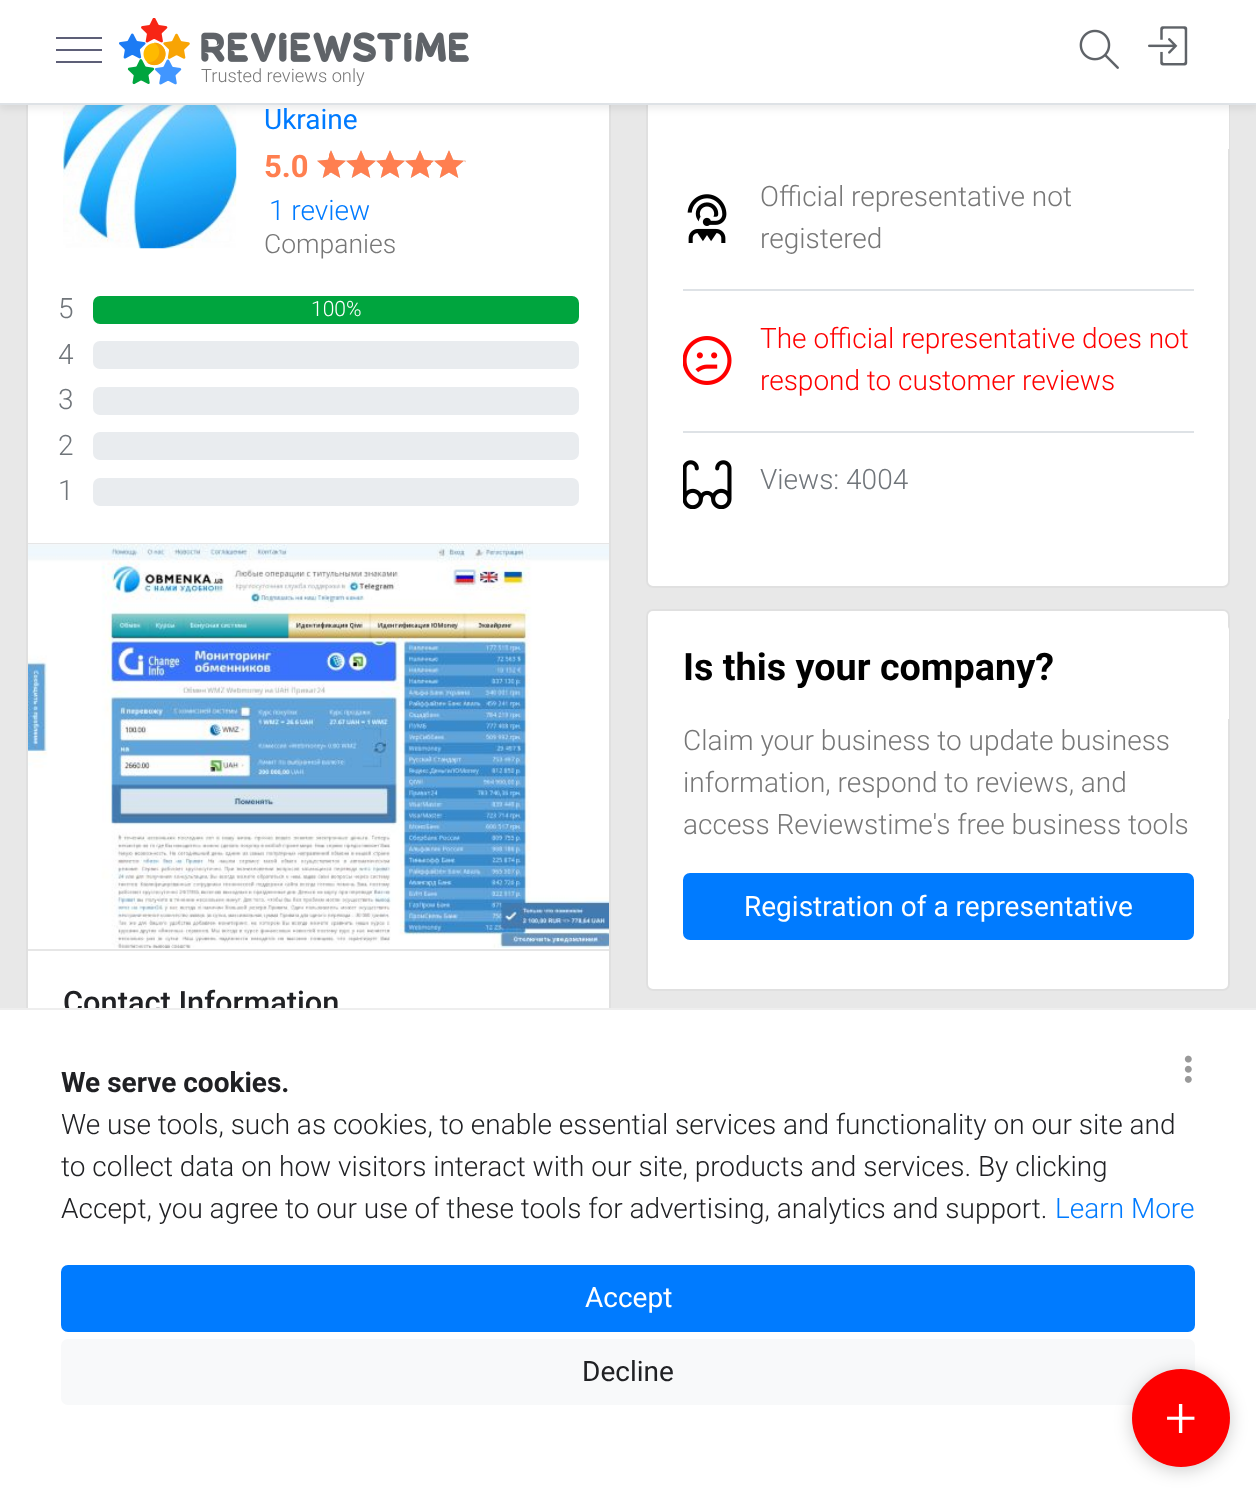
async function draw(canvas) {
  canvas.width = 1256;
  canvas.height = 1492;
  const ctx = canvas.getContext('2d');
  ctx.miterLimit = 4;
  ctx.fontKerning = 'normal';
  function label(s, x, y, font, color) {
    ctx.font = font;
    ctx.fillStyle = color;
    ctx.fillText(s, x, y);
  }
  function rect(x, y, w, h, color) {
    ctx.fillStyle = color;
    ctx.fillRect(x, y, w, h);
  }
  function roundedRect(x, y, w, h, r, color) {
    ctx.fillStyle = color;
    ctx.beginPath();
    ctx.roundRect(x, y, w, h, r);
    ctx.fill();
  }
  async function image(src, x, y, w, h) {
    const img = new Image();
    img.src = src;
    await img.decode();
    ctx.drawImage(img, x, y, w, h);
  }
  let path;

  rect(0, 0, 1256, 1492, '#e8e8e8');
  rect(26, 105, 585, 903, '#fff');
  ctx.fillStyle = '#0000001f';
  path = new Path2D('M33 37H604C608 37 611 40 611 44V1222C611 1225 608 1228 604 1228H33C29 1228 26 1225 26 1222V44C26 40 29 37 33 37ZM33 38H604C607 38 609 41 609 44V1222C609 1225 607 1228 604 1228H33C30 1228 28 1225 28 1222V44C28 41 30 38 33 38Z');
  ctx.fill(path, 'evenodd');
  await image('assets/img4.png', 63, 105, 174, 144);
  roundedRect(646, 37, 584, 551, 7, '#fff');
  ctx.beginPath();
  ctx.roundRect(647, 38, 582, 549, 6);
  ctx.strokeStyle = '#0000001f';
  ctx.lineWidth = 2;
  ctx.stroke();
  rect(1228, 105, 1, 44, '#fff');
  ctx.fillStyle = '#00000012';
  ctx.filter = 'blur(3.5px)';
  ctx.beginPath();
  ctx.rect(0, 4, 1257, 105);
  ctx.fill();
  ctx.filter = 'none';
  rect(0, 0, 1256, 103, '#fff');
  rect(0, 103, 1256, 2, '#dee2e6');
  rect(56, 49, 46, 2, '#5d5f77');
  rect(56, 37, 46, 2, '#5d5f77');
  rect(56, 61, 46, 2, '#5d5f77');
  await image('assets/img1.png', 1079, 29, 40, 40);
  await image('assets/img2.png', 1148, 26, 40, 40);
  await image('assets/img3.png', 119, 18, 350, 67);
  label('Trusted reviews only', 201, 82, '300 18.25px Roboto', '#777');
  label('Ukraine', 264, 129, '28px Roboto', '#007bff');
  label('5.0', 264, 177, 'bold 31px Roboto', '#ff7f50');
  await image('assets/img5.png', 317, 150, 149, 28);
  await image('assets/img6.png', 317, 150, 149, 28);
  label('1 review', 269, 220, '300 28px Roboto', '#007bff');
  label('Companies', 264, 253, '300 26.5px Roboto', '#777');
  label('5', 58, 318, '300 28px Roboto', '#70757a');
  roundedRect(93, 296, 486, 28, 7, '#00a53e');
  label('100%', 311, 316, '300 21px Roboto', '#fff');
  label('4', 58, 364, '300 28px Roboto', '#70757a');
  roundedRect(93, 341, 486, 28, 7, '#e9ecef');
  label('3', 58, 409, '300 28px Roboto', '#70757a');
  roundedRect(93, 387, 486, 28, 7, '#e9ecef');
  label('2', 58, 455, '300 28px Roboto', '#70757a');
  roundedRect(93, 432, 486, 28, 7, '#e9ecef');
  label('1', 58, 500, '300 28px Roboto', '#70757a');
  roundedRect(93, 478, 486, 28, 7, '#e9ecef');
  rect(28, 543, 581, 1, '#e6e6e6');
  rect(28, 949, 581, 2, '#e6e6e6');
  await image('assets/img7.png', 28, 544, 581, 405);
  label('Contact Information', 63, 1013, '500 30.75px Roboto', '#202124');
  rect(683, 289, 511, 2, '#dee2e6');
  await image('assets/img8.png', 687, 194, 40, 49);
  label('Official representative not', 760, 206, '300 28px Roboto', '#777');
  label('registered', 760, 248, '300 28px Roboto', '#777');
  rect(683, 431, 511, 2, '#dee2e6');
  await image('assets/img9.png', 683, 336, 49, 49);
  label('The official representative does not', 760, 348, '300 28px Roboto', '#f00');
  label('respond to customer reviews', 760, 390, '300 28px Roboto', '#f00');
  await image('assets/img10.png', 683, 460, 49, 49);
  label('Views: 4004', 760, 489, '300 28px Roboto', '#70757a');
  roundedRect(646, 609, 584, 382, 7, '#fff');
  ctx.beginPath();
  ctx.roundRect(647, 610, 582, 380, 6);
  ctx.stroke();
  ctx.beginPath();
  ctx.roundRect(648, 625, 581, 94, [5, 5, 0, 0]);
  ctx.fill();
  label('Is this your company?', 683, 680, 'bold 37.75px Roboto', '#000');
  label('Claim your business to update business', 683, 750, '300 28px Roboto', '#777');
  label('information, respond to reviews, and', 683, 792, '300 28px Roboto', '#777');
  label('access Reviewstime\'s free business tools', 683, 834, '300 28px Roboto', '#777');
  ctx.fillStyle = '#007bff';
  ctx.beginPath();
  ctx.roundRect(684, 874, 509, 65, 6);
  ctx.fill();
  ctx.strokeStyle = '#007bff';
  ctx.stroke();
  label('Registration of a representative', 744, 916, '28px Roboto', '#fff');
  rect(0, 1010, 1256, 482, '#fff');
  await image('assets/img11.png', 1184, 1055, 8, 28);
  rect(0, 1008, 1256, 2, '#eee');
  label('We serve cookies.', 61, 1092, 'bold 28px Roboto', '#202124');
  label('We use tools, such as cookies, to enable essential services and functionality on our site and', 61, 1134, '300 28px Roboto', '#202124');
  label('to collect data on how visitors interact with our site, products and services. By clicking', 61, 1176, '300 28px Roboto', '#202124');
  label('Accept, you agree to our use of these tools for advertising, analytics and support.', 61, 1218, '300 28px Roboto', '#202124');
  label('Learn More', 1055, 1218, '300 28px Roboto', '#007bff');
  ctx.beginPath();
  ctx.roundRect(62, 1266, 1132, 65, 6);
  ctx.fill();
  ctx.stroke();
  label('Accept', 585, 1307, '28px Roboto', '#fff');
  roundedRect(61, 1339, 1134, 66, 7, '#f8f9fa');
  label('Decline', 582, 1381, '28px Roboto', '#202124');
  ctx.fillStyle = '#00000033';
  ctx.filter = 'blur(9px)';
  ctx.beginPath();
  ctx.roundRect(1132, 1372, 98, 98, 49);
  ctx.fill();
  ctx.filter = 'none';
  ctx.fillStyle = '#fe0000';
  ctx.beginPath();
  ctx.arc(1181, 1418, 49, 0, 2 * Math.PI);
  ctx.fill();
  label('+', 1165, 1437, '300 56px Roboto', '#fff');
}

draw(document.querySelector('canvas'));
